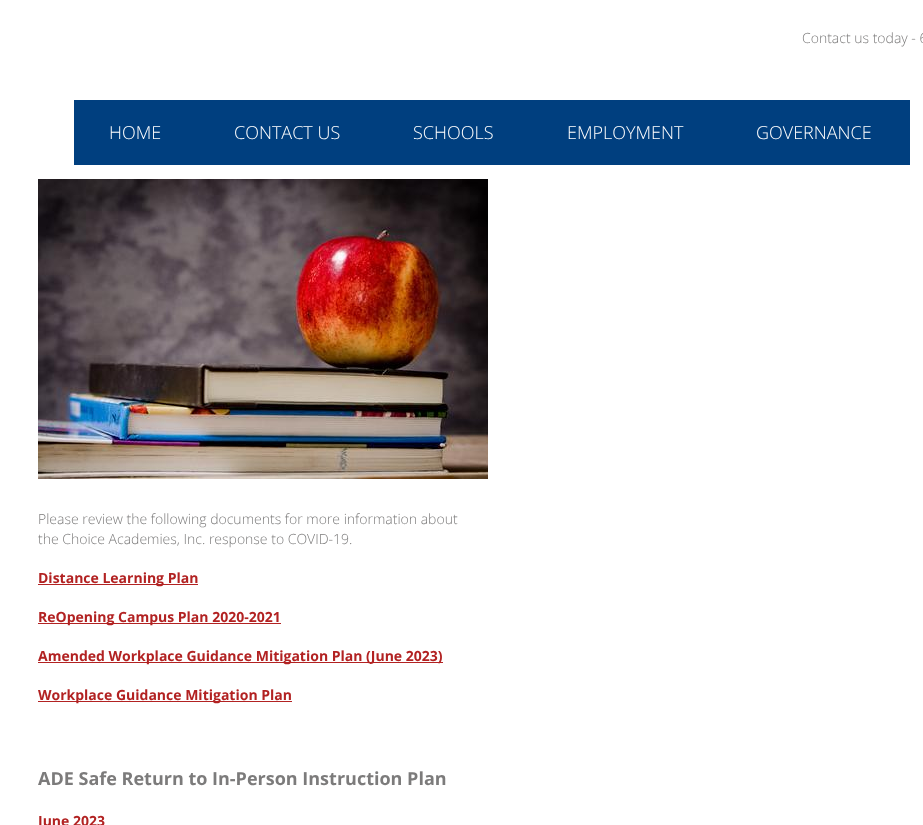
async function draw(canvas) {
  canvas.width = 923;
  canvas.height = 825;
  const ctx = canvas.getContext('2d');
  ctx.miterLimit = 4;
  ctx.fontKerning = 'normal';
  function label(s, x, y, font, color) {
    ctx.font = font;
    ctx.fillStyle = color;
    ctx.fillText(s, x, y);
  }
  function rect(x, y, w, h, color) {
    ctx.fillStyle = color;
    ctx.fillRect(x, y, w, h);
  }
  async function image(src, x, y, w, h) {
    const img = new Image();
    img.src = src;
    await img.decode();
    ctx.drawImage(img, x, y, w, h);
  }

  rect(0, 0, 923, 825, '#fff');
  label('Contact us today - 6', 802, 43, '300 14px Open Sans', '#7c7b7b');
  rect(74, 100, 836, 65, '#003f7f');
  label('HOME', 109, 139, '300 18px Open Sans', '#fff');
  label('CONTACT US', 234, 139, '300 18px Open Sans', '#fff');
  label('SCHOOLS', 413, 139, '300 18px Open Sans', '#fff');
  label('EMPLOYMENT', 567, 139, '300 18px Open Sans', '#fff');
  label('GOVERNANCE', 756, 139, '300 18px Open Sans', '#fff');
  await image('assets/img1.png', 38, 179, 450, 300);
  label('Please review the following documents for more information about', 38, 524, '300 14px Open Sans', '#7c7b7b');
  label('the Choice Academies, Inc. response to COVID-19.', 38, 544, '300 14px Open Sans', '#7c7b7b');
  rect(38, 584, 160, 1, '#b22222');
  label('Distance Learning Plan', 38, 583, 'bold 14px Open Sans', '#b22222');
  rect(38, 623, 243, 1, '#b22222');
  label('ReOpening Campus Plan 2020-2021', 38, 622, 'bold 14px Open Sans', '#b22222');
  rect(38, 662, 405, 1, '#b22222');
  label('Amended Workplace Guidance Mitigation Plan (June 2023)', 38, 661, 'bold 14px Open Sans', '#b22222');
  rect(38, 701, 254, 1, '#b22222');
  label('Workplace Guidance Mitigation Plan', 38, 700, 'bold 14px Open Sans', '#b22222');
  label('ADE Safe Return to In-Person Instruction Plan', 38, 785, 'bold 18px Open Sans', '#7c7b7b');
  label('June 2023', 38, 826, 'bold 14px Open Sans', '#b22222');
}

draw(document.querySelector('canvas'));
